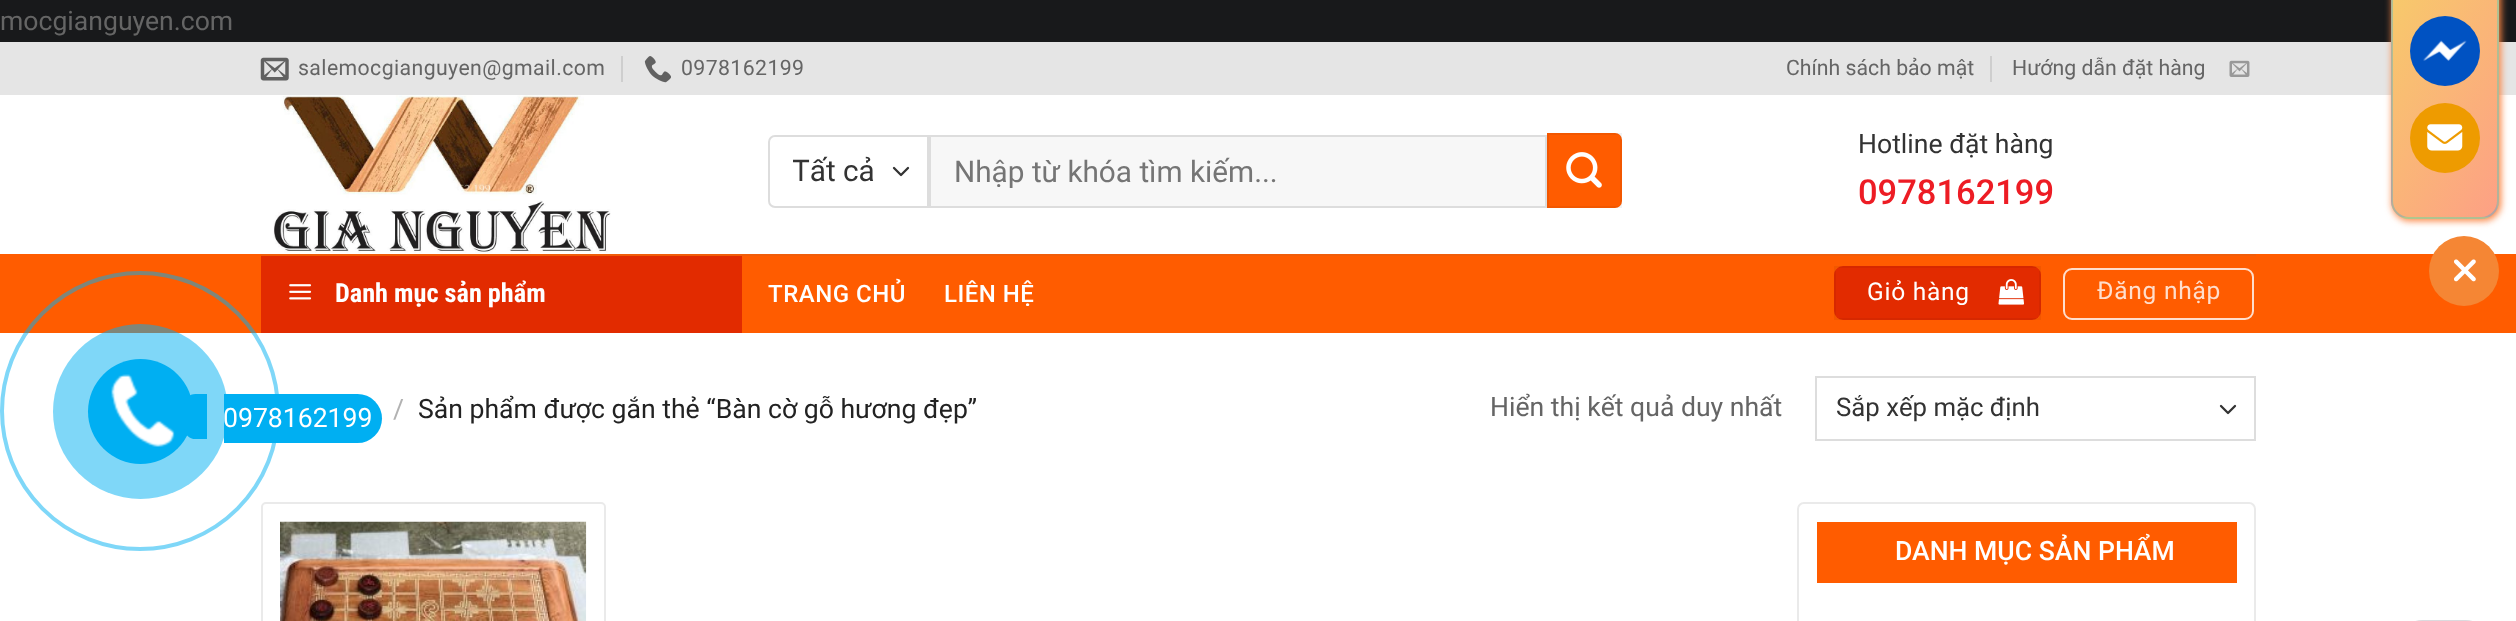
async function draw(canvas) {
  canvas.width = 2516;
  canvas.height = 621;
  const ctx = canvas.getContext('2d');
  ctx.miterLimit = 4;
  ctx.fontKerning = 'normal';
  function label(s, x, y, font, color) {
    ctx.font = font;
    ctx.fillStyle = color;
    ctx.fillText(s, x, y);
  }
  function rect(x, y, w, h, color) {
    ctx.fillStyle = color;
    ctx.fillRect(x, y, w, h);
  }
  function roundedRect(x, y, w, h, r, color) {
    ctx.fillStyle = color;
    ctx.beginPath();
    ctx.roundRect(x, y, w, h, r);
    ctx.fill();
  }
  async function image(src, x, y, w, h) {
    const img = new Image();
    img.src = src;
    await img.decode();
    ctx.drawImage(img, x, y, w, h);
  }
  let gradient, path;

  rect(0, 0, 2516, 621, '#18191b');
  label('mocgianguyen.com', 0, 30, '26.6px Roboto', '#656565');
  rect(0, 95, 2516, 526, '#fff');
  rect(0, 42, 2516, 53, '#e5e5e5');
  ctx.fillStyle = '#fb8543';
  ctx.filter = 'blur(3.5px)';
  ctx.beginPath();
  ctx.roundRect(2392, -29, 109, 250, 18);
  ctx.fill();
  ctx.filter = 'none';
  ctx.save();
  ctx.beginPath();
  ctx.roundRect(2391, -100, 108, 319, 18);
  ctx.clip();
  gradient = ctx.createLinearGradient(2232, -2.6, 2447, 122);
  gradient.addColorStop(0, '#f6d365');
  gradient.addColorStop(1, '#fda085');
  ctx.fillStyle = gradient;
  ctx.fillRect(2391, 0, 1, 207);
  gradient = ctx.createLinearGradient(2337, -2.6, 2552, 122);
  gradient.addColorStop(0, '#f6d365');
  gradient.addColorStop(1, '#fda085');
  ctx.fillStyle = gradient;
  ctx.fillRect(2392, 0, 105, 217);
  gradient = ctx.createLinearGradient(2442, -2.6, 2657, 122);
  gradient.addColorStop(0, '#f6d365');
  gradient.addColorStop(1, '#fda085');
  ctx.fillStyle = gradient;
  ctx.fillRect(2497, 0, 2, 217);
  gradient = ctx.createLinearGradient(2337, 312, 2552, 437);
  gradient.addColorStop(0, '#f6d365');
  gradient.addColorStop(1, '#fda085');
  ctx.fillStyle = gradient;
  ctx.fillRect(2401, 217, 96, 2);
  ctx.restore();
  ctx.beginPath();
  ctx.roundRect(2392, -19, 106, 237, 17);
  ctx.strokeStyle = '#00afee4a';
  ctx.lineWidth = 2;
  ctx.stroke();
  ctx.fillStyle = '#0052c2';
  ctx.beginPath();
  ctx.arc(2445, 51, 35, 0, 2 * Math.PI);
  ctx.fill();
  await image('assets/img1.png', 2423, 40, 44, 21);
  ctx.fillStyle = '#ee9b00';
  ctx.beginPath();
  ctx.arc(2445, 138, 35, 0, 2 * Math.PI);
  ctx.fill();
  await image('assets/img2.png', 2427, 124, 36, 27);
  rect(0, 254, 2516, 79, '#ff5c00');
  ctx.fillStyle = '#f58634';
  ctx.beginPath();
  ctx.arc(2464, 271, 35, 0, 2 * Math.PI);
  ctx.fill();
  await image('assets/img3.png', 2454, 259, 22, 23);
  await image('assets/img4.png', 260, 57, 29, 24);
  ctx.letterSpacing = '0.4px';
  label('salemocgianguyen@gmail.com', 298, 75, '21.25px Roboto', '#656565');
  rect(621, 56, 2, 26, '#cecece');
  await image('assets/img5.png', 644, 56, 27, 27);
  label('0978162199', 681, 75, '21.25px Roboto', '#656565');
  ctx.letterSpacing = '0px';
  label('Chính sách bảo mật', 1786, 75, '21.25px Roboto', '#656565');
  rect(1990, 56, 2, 26, '#cecece');
  label('Hướng dẫn đặt hàng', 2012, 75, '21.25px Roboto', '#656565');
  await image('assets/img6.png', 2229, 60, 21, 17);
  await image('assets/img7.png', 273, 95, 338, 158);
  path = new Path2D('M894 168L901 175L908 168');
  ctx.strokeStyle = '#333';
  ctx.lineWidth = 2.3;
  ctx.lineCap = 'round';
  ctx.lineJoin = 'round';
  ctx.stroke(path);
  ctx.beginPath();
  ctx.roundRect(769, 136, 159, 71, [6, 0, 0, 6]);
  ctx.strokeStyle = '#ddd';
  ctx.lineWidth = 2;
  ctx.lineJoin = 'miter';
  ctx.stroke();
  ctx.save();
  ctx.beginPath();
  ctx.rect(793, 147, 94, 47);
  ctx.clip();
  label('Tất cả', 792, 181, '29.75px Roboto', '#333');
  ctx.restore();
  ctx.fillStyle = '#f7f7f7';
  ctx.beginPath();
  ctx.rect(930, 136, 616, 71);
  ctx.fill();
  ctx.stroke();
  label('Nhập từ khóa tìm kiếm...', 954, 182, '29.75px Roboto', '#757575');
  ctx.fillStyle = '#ff5c00';
  ctx.beginPath();
  ctx.roundRect(1547, 133, 75, 75, [0, 7, 7, 0]);
  ctx.fill();
  ctx.strokeStyle = '#0000000d';
  ctx.strokeRect(1548, 134, 73, 73);
  await image('assets/img8.png', 1566, 152, 36, 36);
  label('Hotline đặt hàng', 1858, 153, '26.6px Roboto', '#333');
  label('0978162199', 1858, 204, '500 34.5px Roboto', '#ed1c24');
  rect(261, 254, 1995, 2, '#f05d0a');
  rect(261, 256, 481, 77, '#e22b00');
  await image('assets/img9.png', 289, 284, 23, 16);
  label('Danh mục sản phẩm', 335, 302, 'bold 26.25px Roboto Condensed', '#fff');
  ctx.letterSpacing = '0.5px';
  label('TRANG CHỦ', 768, 302, '500 24px Roboto', '#fff');
  label('LIÊN HỆ', 944, 302, '500 24px Roboto', '#fff');
  roundedRect(1834, 266, 207, 54, 9, '#e22b00');
  ctx.strokeRect(1835, 267, 205, 52);
  ctx.letterSpacing = '0.75px';
  label('Giỏ hàng', 1867, 300, '24.5px Roboto', '#fff');
  await image('assets/img10.png', 1998, 279, 26, 26);
  ctx.beginPath();
  ctx.roundRect(2064, 269, 189, 50, 8);
  ctx.strokeStyle = '#ffdecc';
  ctx.stroke();
  label('Đăng nhập', 2097, 299, '24.5px Roboto', '#ffdecc');
  ctx.letterSpacing = '0px';
  label('/', 393, 418, '26.6px Roboto', '#b2b2b2');
  label('Sản phẩm được gắn thẻ “Bàn cờ gỗ hương đẹp”', 418, 418, '26.6px Roboto', '#222');
  label('Hiển thị kết quả duy nhất', 1490, 416, '26.6px Roboto', '#656565');
  path = new Path2D('M2221 406L2228 413L2235 406');
  ctx.strokeStyle = '#333';
  ctx.lineWidth = 2.3;
  ctx.lineJoin = 'round';
  ctx.stroke(path);
  ctx.strokeStyle = '#ddd';
  ctx.lineWidth = 2;
  ctx.lineJoin = 'miter';
  ctx.strokeRect(1816, 377, 439, 63);
  label('Sắp xếp mặc định', 1836, 416, '25.75px Roboto', '#333');
  ctx.beginPath();
  ctx.roundRect(262, 503, 343, 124, 4);
  ctx.strokeStyle = '#eaeaea';
  ctx.stroke();
  await image('assets/img11.png', 280, 521, 307, 100);
  ctx.beginPath();
  ctx.roundRect(1798, 503, 457, 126, 6);
  ctx.stroke();
  rect(1817, 522, 420, 61, '#ff5c00');
  label('DANH MỤC SẢN PHẨM', 1895, 560, '500 26.6px Roboto', '#fff');
  ctx.beginPath();
  ctx.arc(140, 411, 138, 0, 2 * Math.PI);
  ctx.strokeStyle = '#00aff280';
  ctx.lineWidth = 4;
  ctx.stroke();
  ctx.fillStyle = '#00aff280';
  ctx.beginPath();
  ctx.arc(140.5, 411.5, 87.5, 0, 2 * Math.PI);
  ctx.fill();
  ctx.fillStyle = '#00aff2';
  ctx.beginPath();
  ctx.arc(140.5, 411.5, 52.5, 0, 2 * Math.PI);
  ctx.fill();
  await image('assets/img12.png', 111, 374, 64, 73);
  ctx.beginPath();
  ctx.roundRect(224, 394, 158, 49, [0, 24.5, 24.5, 0]);
  ctx.fill();
  label('0978162199', 223, 427, '26.6px Roboto', '#fff');
  ctx.fillStyle = '#00aff2';
  ctx.beginPath();
  ctx.roundRect(184, 394, 23, 45, [11.5, 0, 0, 11.5]);
  ctx.fill();
  ctx.beginPath();
  ctx.roundRect(2399, 621, 90, 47, 45);
  ctx.strokeStyle = '#dbdade';
  ctx.lineWidth = 2;
  ctx.stroke();
}

draw(document.querySelector('canvas'));
